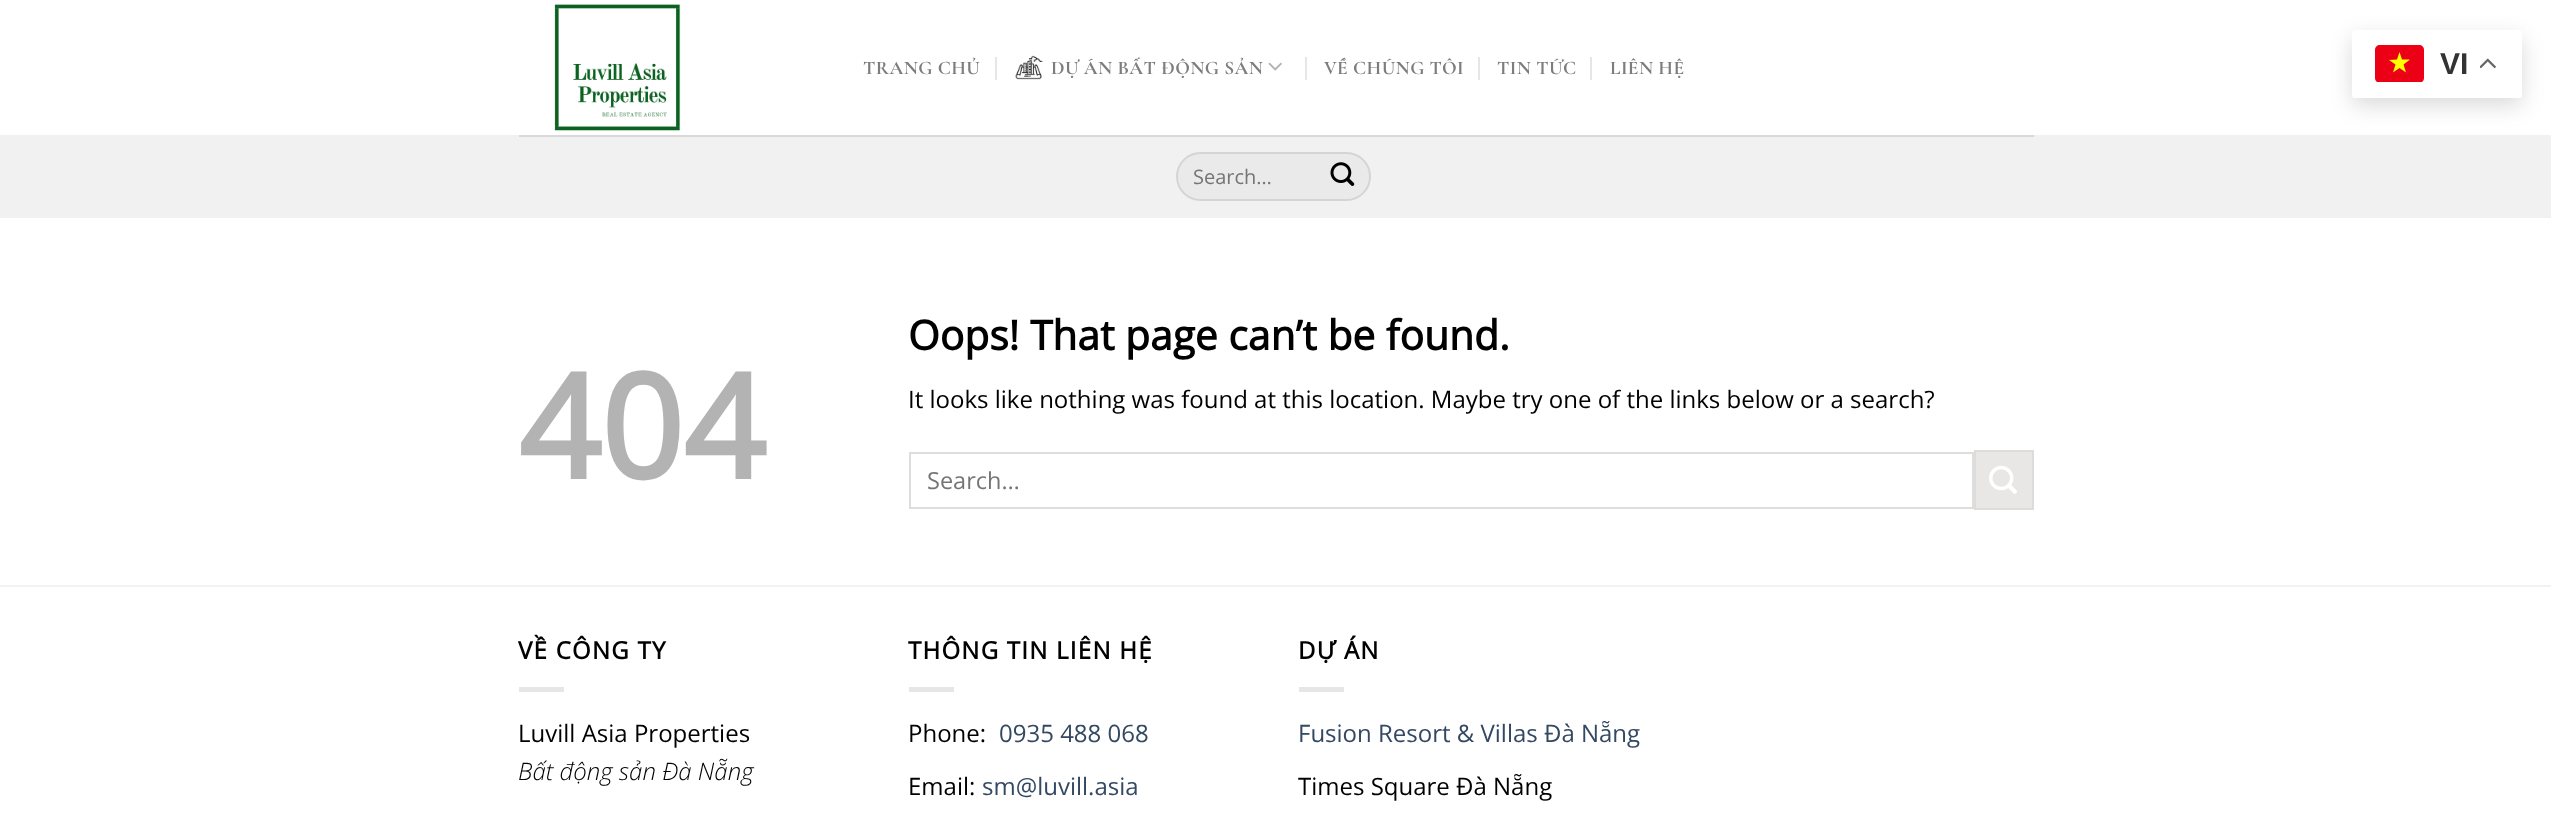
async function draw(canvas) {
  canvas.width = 2551;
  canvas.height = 839;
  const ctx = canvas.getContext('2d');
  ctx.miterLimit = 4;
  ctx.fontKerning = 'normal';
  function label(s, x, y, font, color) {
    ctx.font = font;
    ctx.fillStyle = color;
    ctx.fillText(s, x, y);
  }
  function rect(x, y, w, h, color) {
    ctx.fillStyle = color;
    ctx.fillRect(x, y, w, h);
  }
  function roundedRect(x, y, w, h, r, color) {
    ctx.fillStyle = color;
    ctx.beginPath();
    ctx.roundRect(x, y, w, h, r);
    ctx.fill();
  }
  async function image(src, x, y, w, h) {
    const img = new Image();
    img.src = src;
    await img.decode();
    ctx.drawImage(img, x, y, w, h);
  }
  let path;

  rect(0, 0, 2551, 839, '#fff');
  await image('assets/img1.png', 554, 4, 127, 127);
  ctx.letterSpacing = '0.4px';
  label('TRANG CHỦ', 863, 74, 'bold 19.25px Cormorant Garamond', '#7d7d7d');
  rect(995, 57, 2, 23, '#e6e6e6');
  await image('assets/img2.png', 1015, 55, 28, 25);
  label('DỰ ÁN BẤT ĐỘNG SẢN', 1051, 74, 'bold 19.25px Cormorant Garamond', '#7d7d7d');
  await image('assets/img3.png', 1268, 62, 14, 9);
  rect(1305, 57, 2, 23, '#e6e6e6');
  label('VỀ CHÚNG TÔI', 1324, 74, 'bold 19.25px Cormorant Garamond', '#7d7d7d');
  rect(1478, 57, 2, 23, '#e6e6e6');
  label('TIN TỨC', 1497, 74, 'bold 19.25px Cormorant Garamond', '#7d7d7d');
  rect(1590, 57, 2, 23, '#e6e6e6');
  label('LIÊN HỆ', 1610, 74, 'bold 19.25px Cormorant Garamond', '#7d7d7d');
  rect(0, 135, 2551, 83, '#f1f1f1');
  rect(519, 135, 1515, 2, '#d9d9d9');
  roundedRect(1176, 152, 195, 49, 24.5, '#eaeaea');
  ctx.beginPath();
  ctx.roundRect(1177, 153, 193, 47, 23.5);
  ctx.strokeStyle = '#00000017';
  ctx.lineWidth = 2;
  ctx.stroke();
  ctx.letterSpacing = '0px';
  label('Search…', 1193, 184, '20px Open Sans', '#757575');
  await image('assets/img4.png', 1330, 162, 25, 24);
  label('404', 518, 479, 'bold 144px Open Sans', '#b3b3b3');
  label('Oops! That page can’t be found.', 908, 350, 'bold 40.75px Open Sans', '#000');
  label('It looks like nothing was found at this location. Maybe try one of the links below or a search?', 908, 408, '24px Open Sans', '#000');
  ctx.strokeStyle = '#ddd';
  ctx.strokeRect(910, 453, 1063, 55);
  label('Search…', 927, 489, '23.5px Open Sans', '#757575');
  ctx.fillStyle = '#e9e7e6';
  ctx.beginPath();
  ctx.rect(1975, 451, 58, 58);
  ctx.fill();
  ctx.strokeStyle = '#dddbdb';
  ctx.stroke();
  await image('assets/img5.png', 1989, 465, 28, 29);
  rect(0, 585, 2551, 2, '#f2f2f2');
  ctx.letterSpacing = '1.25px';
  label('VỀ CÔNG TY', 518, 659, 'bold 24px Open Sans', '#000');
  rect(519, 687, 45, 5, '#e6e6e6');
  ctx.letterSpacing = '0px';
  label('Luvill Asia Properties', 518, 742, '24px Open Sans', '#000');
  label('Bất động sản Đà Nẵng', 518, 780, 'italic 300 24px Open Sans', '#000');
  ctx.letterSpacing = '1.25px';
  label('THÔNG TIN LIÊN HỆ', 908, 659, 'bold 24px Open Sans', '#000');
  rect(909, 687, 45, 5, '#e6e6e6');
  ctx.letterSpacing = '0px';
  label('Phone:', 908, 742, '24px Open Sans', '#000');
  label('0935 488 068', 999, 742, '24px Open Sans', '#334862');
  label('Email:', 908, 795, '24px Open Sans', '#000');
  label('sm@luvill.asia', 982, 795, '24px Open Sans', '#334862');
  ctx.letterSpacing = '1.25px';
  label('DỰ ÁN', 1298, 659, 'bold 24px Open Sans', '#000');
  rect(1299, 687, 45, 5, '#e6e6e6');
  ctx.letterSpacing = '0px';
  label('Fusion Resort & Villas Đà Nẵng', 1298, 742, '24px Open Sans', '#334862');
  label('Times Square Đà Nẵng', 1298, 795, '24px Open Sans', '#000');
  ctx.fillStyle = '#00000026';
  ctx.filter = 'blur(11px)';
  ctx.beginPath();
  ctx.roundRect(2352, 38, 170, 67, 3);
  ctx.fill();
  ctx.filter = 'none';
  roundedRect(2352, 30, 170, 68, 3, '#fff');
  ctx.fillStyle = '#ec0015';
  path = new Path2D('M2380 45C2377 45 2375 47 2375 50V78C2375 80 2376 81 2377 82H2422C2423 81 2424 80 2424 78V50C2424 47 2422 45 2419 45Z');
  ctx.fill(path);
  ctx.fillStyle = '#ff0';
  path = new Path2D('M2406 72.5L2399.5 68L2393 72.5L2395.5 64.5L2389 60L2397 59.5L2399.5 52L2402 59.5H2410L2403.5 64.5Z');
  ctx.fill(path, 'evenodd');
  label('VI', 2440, 74, 'bold 30px Liberation Sans', '#333');
  await image('assets/img6.png', 2480, 58, 16, 11);
}

draw(document.querySelector('canvas'));
